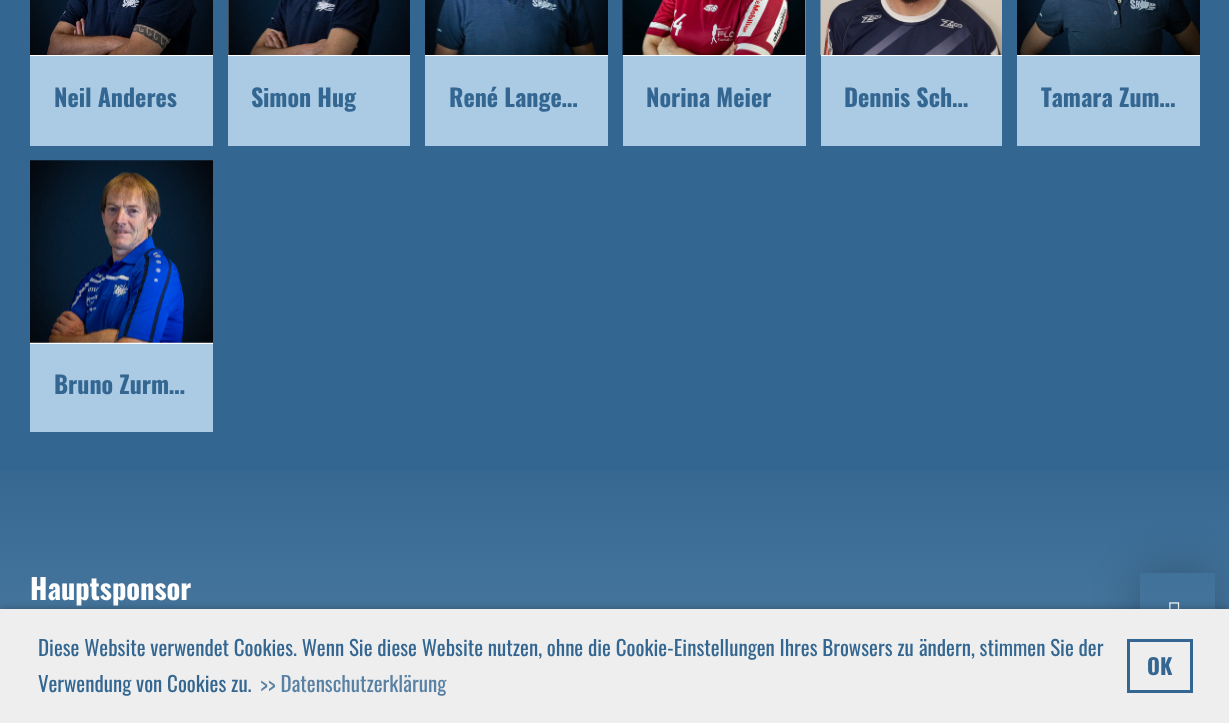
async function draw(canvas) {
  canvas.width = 1229;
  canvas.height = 723;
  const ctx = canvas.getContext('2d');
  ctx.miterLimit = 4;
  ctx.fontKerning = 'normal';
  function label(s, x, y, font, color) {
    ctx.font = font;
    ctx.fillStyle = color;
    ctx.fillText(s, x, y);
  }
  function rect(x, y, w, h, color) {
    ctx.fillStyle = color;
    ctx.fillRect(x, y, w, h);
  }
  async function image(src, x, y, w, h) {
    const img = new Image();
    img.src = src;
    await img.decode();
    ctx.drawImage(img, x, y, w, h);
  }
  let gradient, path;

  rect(0, 0, 1229, 723, '#336690');
  rect(30, 55, 183, 1, '#fff');
  await image('assets/img1.png', 30, 0, 183, 55);
  rect(30, 56, 183, 90, '#abcae4');
  label('Neil Anderes', 54, 107, 'bold 24px Oswald', '#336690');
  rect(228, 0, 182, 56, '#fff');
  await image('assets/img2.png', 228, 0, 182, 55);
  rect(228, 56, 182, 90, '#abcae4');
  label('Simon Hug', 251, 107, 'bold 24px Oswald', '#336690');
  rect(425, 55, 183, 1, '#fff');
  await image('assets/img3.png', 425, 0, 183, 55);
  rect(425, 56, 183, 90, '#abcae4');
  label('René Lange…', 449, 107, 'bold 24px Oswald', '#336690');
  rect(623, 0, 183, 56, '#fff');
  await image('assets/img4.png', 622, 0, 184, 55);
  rect(623, 56, 183, 90, '#abcae4');
  label('Norina Meier', 646, 107, 'bold 24px Oswald', '#336690');
  rect(821, 55, 181, 1, '#fff');
  await image('assets/img5.png', 820, 0, 182, 55);
  rect(821, 56, 181, 90, '#abcae4');
  label('Dennis Sch…', 844, 107, 'bold 24px Oswald', '#336690');
  rect(1017, 55, 183, 1, '#fff');
  await image('assets/img6.png', 1017, 0, 183, 55);
  rect(1017, 56, 183, 90, '#abcae4');
  label('Tamara Zum…', 1041, 107, 'bold 24px Oswald', '#336690');
  rect(30, 342, 183, 2, '#fff');
  await image('assets/img7.png', 30, 160, 183, 183);
  rect(30, 344, 183, 88, '#abcae4');
  label('Bruno Zurm…', 54, 394, 'bold 24px Oswald', '#336690');
  gradient = ctx.createLinearGradient(615, 447, 615, 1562);
  gradient.addColorStop(0, '#336690');
  gradient.addColorStop(1, '#abcae4');
  ctx.fillStyle = gradient;
  ctx.fillRect(0, 470, 1229, 139);
  label('Hauptsponsor', 30, 600, 'bold 28.5px Oswald', '#fff');
  ctx.save();
  path = new Path2D('M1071 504H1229V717H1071ZM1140 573H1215V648H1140Z');
  ctx.clip(path, 'evenodd');
  ctx.fillStyle = '#00000040';
  ctx.filter = 'blur(22.5px)';
  ctx.beginPath();
  ctx.rect(1140, 573, 75, 75);
  ctx.fill();
  ctx.filter = 'none';
  ctx.restore();
  await image('assets/img8.png', 1169, 602, 11, 7);
  ctx.fillStyle = '#0000004d';
  ctx.filter = 'blur(4px)';
  ctx.beginPath();
  ctx.rect(0, 609, 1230, 114);
  ctx.fill();
  ctx.filter = 'none';
  rect(0, 609, 1229, 114, '#eee');
  label('Diese Website verwendet Cookies. Wenn Sie diese Website nutzen, ohne die Cookie-Einstellungen Ihres Browsers zu ändern, stimmen Sie der', 38, 656, '21px Oswald', '#336690');
  label('Verwendung von Cookies zu.', 38, 692, '21px Oswald', '#336690');
  label('>> Datenschutzerklärung', 260, 692, '21px Oswald', '#5881a3');
  ctx.strokeStyle = '#336690';
  ctx.lineWidth = 3;
  ctx.strokeRect(1128.5, 640.5, 63, 51);
  label('OK', 1147, 675, 'bold 22px Oswald', '#336690');
}

draw(document.querySelector('canvas'));
